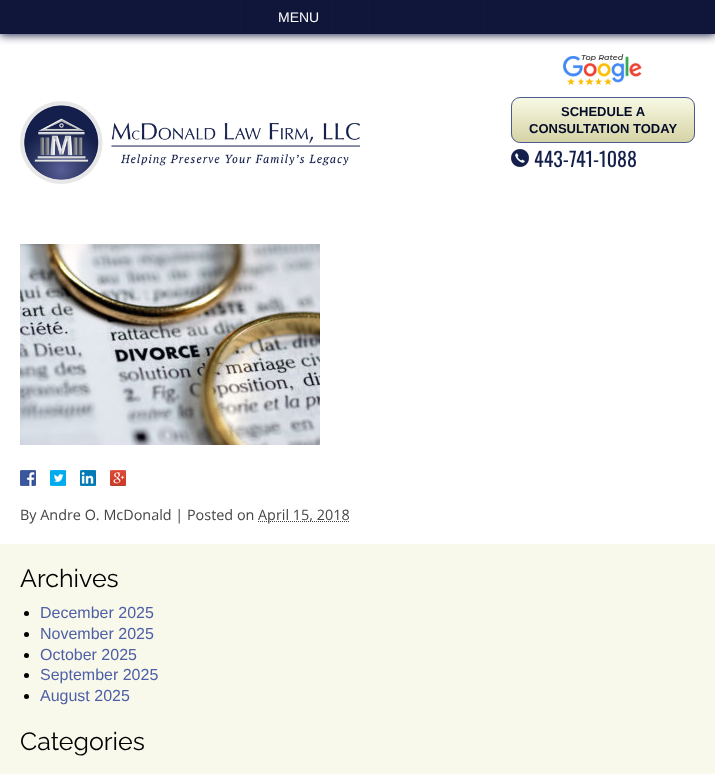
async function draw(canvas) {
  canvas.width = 715;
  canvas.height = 774;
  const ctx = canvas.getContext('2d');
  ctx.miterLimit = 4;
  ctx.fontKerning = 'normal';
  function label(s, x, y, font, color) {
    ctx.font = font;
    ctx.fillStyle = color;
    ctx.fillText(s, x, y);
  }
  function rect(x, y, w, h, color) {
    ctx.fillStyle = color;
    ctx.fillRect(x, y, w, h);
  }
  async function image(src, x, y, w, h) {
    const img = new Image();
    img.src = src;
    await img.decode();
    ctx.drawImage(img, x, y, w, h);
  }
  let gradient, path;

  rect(0, 0, 715, 774, '#fff');
  ctx.fillStyle = '#191e44';
  ctx.filter = 'blur(5px)';
  ctx.beginPath();
  ctx.rect(0, 1, 715, 34);
  ctx.fill();
  ctx.filter = 'none';
  rect(0, 0, 715, 34, '#10153a');
  rect(331, 0, 1, 34, '#121741');
  rect(240, 0, 1, 34, '#121741');
  label('MENU', 278, 22, '14px Liberation Sans', '#fff');
  rect(368, 0, 1, 34, '#121741');
  rect(414, 0, 1, 34, '#121741');
  rect(446, 0, 1, 34, '#121741');
  rect(483, 0, 1, 34, '#121741');
  await image('assets/img1.png', 20, 101, 340, 83);
  await image('assets/img2.png', 563, 54, 79, 31);
  ctx.save();
  ctx.beginPath();
  ctx.roundRect(511, 97, 184, 46, 9);
  ctx.clip();
  gradient = ctx.createLinearGradient(603, 98, 603, 142);
  gradient.addColorStop(0, '#f8f9e4');
  gradient.addColorStop(1, '#d5d3a5');
  ctx.fillStyle = gradient;
  ctx.fillRect(511, 98, 184, 44);
  ctx.restore();
  ctx.beginPath();
  ctx.roundRect(511.5, 97.5, 183, 45, 8.5);
  ctx.strokeStyle = '#4d5a8f';
  ctx.stroke();
  label('SCHEDULE A', 561, 116, 'bold 13px Liberation Sans', '#050c26');
  label('CONSULTATION TODAY', 529, 133, 'bold 13px Liberation Sans', '#050c26');
  await image('assets/img3.png', 511, 149, 18, 18);
  label('443-741-1088', 534, 167, '20px Oswald', '#141f4b');
  await image('assets/img4.png', 20, 244, 300, 201);
  await image('assets/img5.png', 20, 470, 16, 16);
  await image('assets/img6.png', 50, 470, 16, 16);
  await image('assets/img7.png', 80, 470, 16, 16);
  await image('assets/img8.png', 110, 470, 16, 16);
  label('By Andre O. McDonald | Posted on', 20, 520, '14.4px Open Sans', '#454545');
  path = new Path2D('M258 521.5H350');
  ctx.strokeStyle = '#454545';
  ctx.setLineDash([1, 1]);
  ctx.stroke(path);
  label('April 15, 2018', 258, 520, '14.4px Open Sans', '#454545');
  rect(0, 544, 715, 230, '#f8f9eb');
  label('Archives', 20, 587, '25px Raleway', '#000');
  ctx.beginPath();
  ctx.arc(26.5, 613.5, 2.5, 0, 2 * Math.PI);
  ctx.fill();
  label('December 2025', 40, 618, '16px Liberation Sans', '#4f5fa6');
  ctx.fillStyle = '#000';
  ctx.beginPath();
  ctx.arc(26.5, 634.5, 2.5, 0, 2 * Math.PI);
  ctx.fill();
  label('November 2025', 40, 639, '16px Liberation Sans', '#4f5fa6');
  ctx.fillStyle = '#000';
  ctx.beginPath();
  ctx.arc(26.5, 655.5, 2.5, 0, 2 * Math.PI);
  ctx.fill();
  label('October 2025', 40, 660, '16px Liberation Sans', '#4f5fa6');
  ctx.fillStyle = '#000';
  ctx.beginPath();
  ctx.arc(26.5, 675.5, 2.5, 0, 2 * Math.PI);
  ctx.fill();
  label('September 2025', 40, 680, '16px Liberation Sans', '#4f5fa6');
  ctx.fillStyle = '#000';
  ctx.beginPath();
  ctx.arc(26.5, 696.5, 2.5, 0, 2 * Math.PI);
  ctx.fill();
  label('August 2025', 40, 701, '16px Liberation Sans', '#4f5fa6');
  label('Categories', 20, 750, '25px Raleway', '#000');
}

draw(document.querySelector('canvas'));
